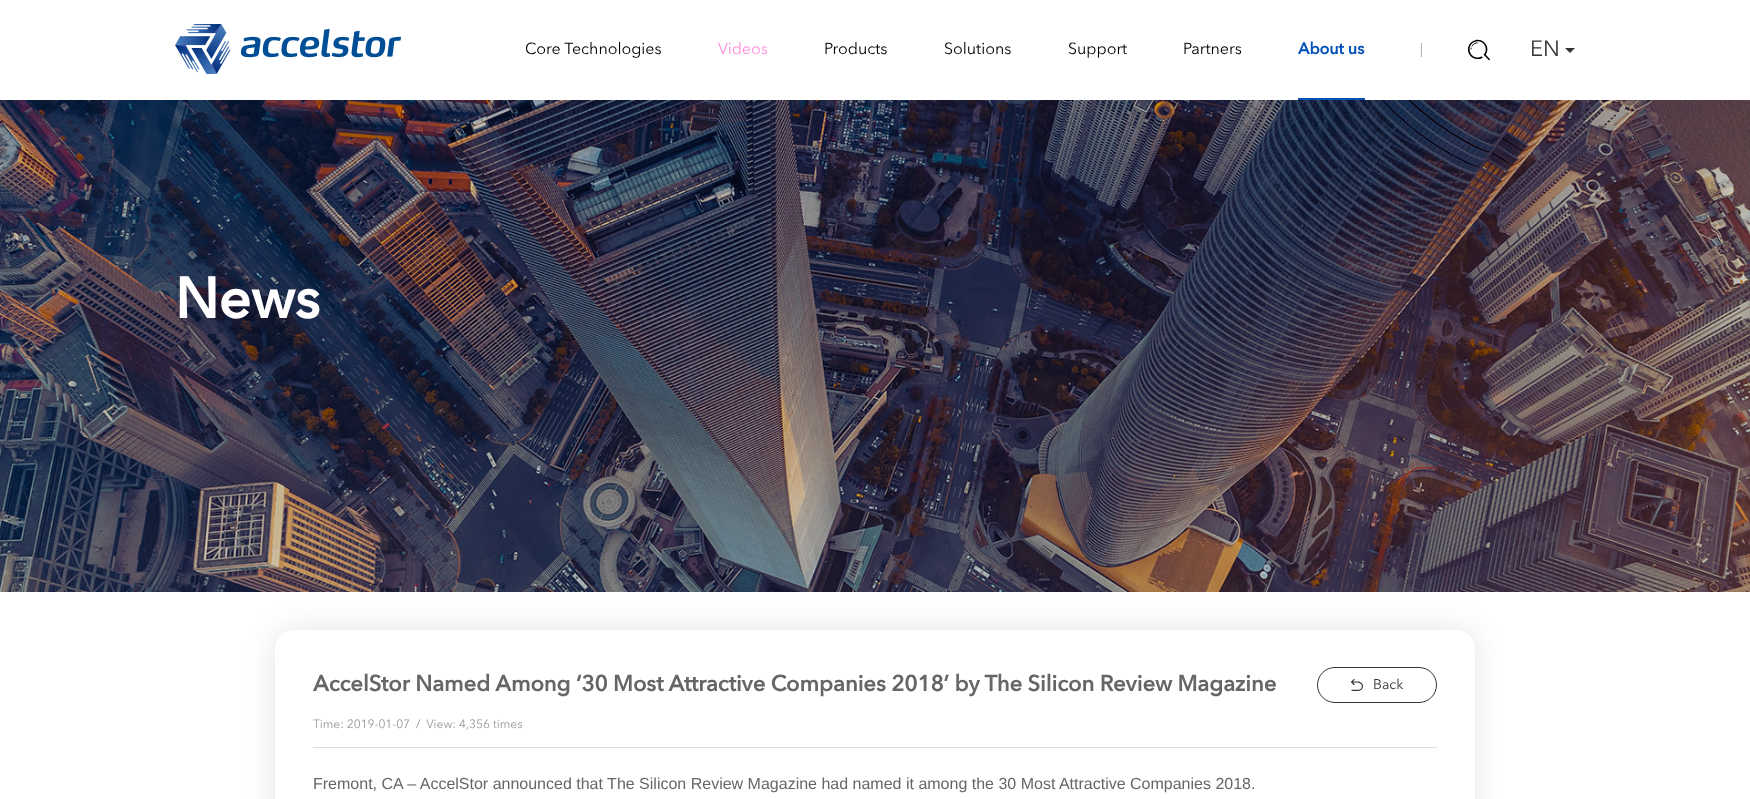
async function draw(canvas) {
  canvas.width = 1750;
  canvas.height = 799;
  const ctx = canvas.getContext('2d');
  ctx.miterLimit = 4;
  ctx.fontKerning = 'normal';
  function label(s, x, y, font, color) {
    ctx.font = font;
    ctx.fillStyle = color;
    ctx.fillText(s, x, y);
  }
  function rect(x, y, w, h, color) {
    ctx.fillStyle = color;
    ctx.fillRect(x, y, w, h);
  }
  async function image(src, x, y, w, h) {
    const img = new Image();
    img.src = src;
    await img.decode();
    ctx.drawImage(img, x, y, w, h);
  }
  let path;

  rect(0, 0, 1750, 799, '#fff');
  await image('assets/img1.png', 175, 24, 226, 50);
  label('Core Technologies', 525, 54, '16px Avenir Next', '#000');
  label('Videos', 718, 54, '16px Avenir Next', '#ff8edb');
  label('Products', 824, 54, '16px Avenir Next', '#000');
  label('Solutions', 944, 54, '16px Avenir Next', '#000');
  label('Support', 1068, 54, '16px Avenir Next', '#000');
  label('Partners', 1183, 54, '16px Avenir Next', '#000');
  label('About us', 1298, 54, 'bold 16px Avenir Next', '#0250b8');
  rect(1298, 98, 67, 2, '#0250b8');
  rect(1421, 43, 1, 14, '#b3b3b3');
  await image('assets/img2.png', 1468, 39, 22, 22);
  label('EN', 1530, 56, '22px Avenir Next', '#333');
  path = new Path2D('M1565 48H1575L1570 53Z');
  ctx.fill(path);
  ctx.save();
  path = new Path2D('M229 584H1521V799H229ZM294 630H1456C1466.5 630 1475 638.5 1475 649V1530C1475 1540.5 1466.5 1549 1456 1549H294C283.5 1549 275 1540.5 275 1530V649C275 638.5 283.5 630 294 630Z');
  ctx.clip(path, 'evenodd');
  ctx.fillStyle = '#0000001a';
  ctx.filter = 'blur(15px)';
  ctx.beginPath();
  ctx.roundRect(275, 630, 1200, 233, 19);
  ctx.fill();
  ctx.filter = 'none';
  ctx.restore();
  await image('assets/img3.png', 0, 100, 1750, 492);
  label('News', 175, 318, 'bold 56.5px Avenir Next', '#fff');
  label('AccelStor Named Among ‘30 Most Attractive Companies 2018’ by The Silicon Review Magazine', 313, 691, 'bold 22px Avenir Next', '#666');
  ctx.beginPath();
  ctx.roundRect(1317.5, 667.5, 119, 35, 17.5);
  ctx.strokeStyle = '#333';
  ctx.stroke();
  await image('assets/img4.png', 1351, 679, 12, 12);
  label('Back', 1373, 689, '14px Avenir Next', '#333');
  label('Time: 2019-01-07  /  View: 4,356 times', 313, 728, '12px Avenir Next', '#999');
  rect(313, 747, 1124, 1, '#ddd');
  label('Fremont, CA – AccelStor announced that The Silicon Review Magazine had named it among the 30 Most Attractive Companies 2018.', 313, 789, '16px Liberation Sans', '#666');
}

draw(document.querySelector('canvas'));
